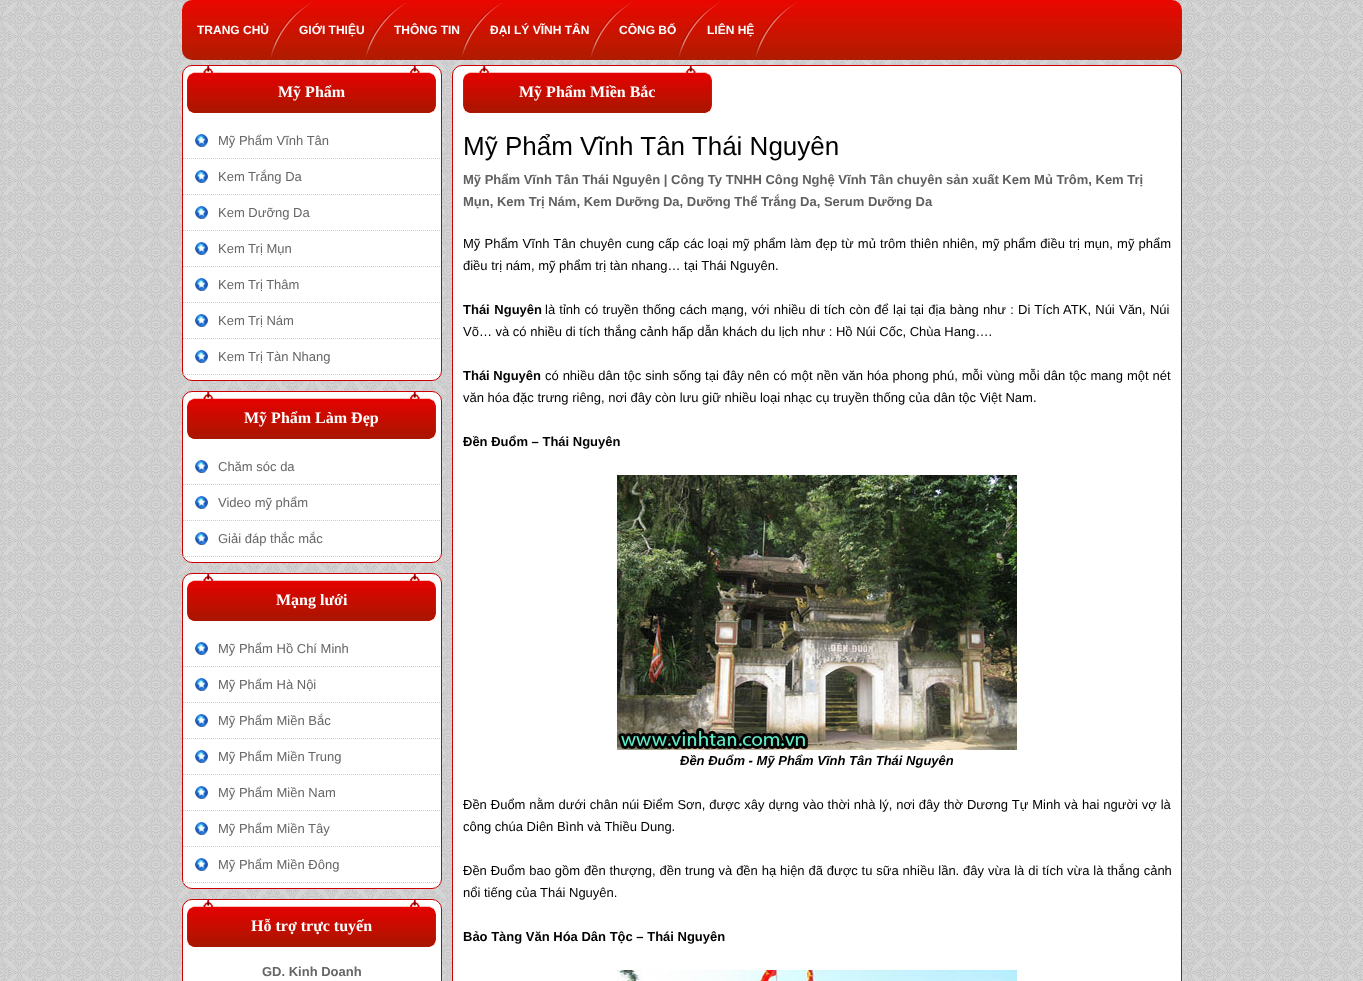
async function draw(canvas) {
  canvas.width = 1363;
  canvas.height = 981;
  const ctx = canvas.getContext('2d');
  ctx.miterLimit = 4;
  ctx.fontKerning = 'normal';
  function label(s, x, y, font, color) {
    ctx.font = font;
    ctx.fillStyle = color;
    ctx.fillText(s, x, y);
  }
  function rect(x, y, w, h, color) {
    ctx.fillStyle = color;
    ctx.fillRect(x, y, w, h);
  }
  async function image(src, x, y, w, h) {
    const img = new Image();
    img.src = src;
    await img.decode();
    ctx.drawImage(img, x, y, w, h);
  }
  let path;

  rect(0, 0, 1363, 981, '#fff');
  await image('assets/img1.png', 0, 0, 1363, 981);
  await image('assets/img2.png', 182, 0, 1000, 60);
  label('TRANG CHỦ', 197, 34, 'bold 12px Liberation Sans', '#fff');
  await image('assets/img3.png', 270, 2, 42, 55);
  label('GIỚI THIỆU', 299, 34, 'bold 12px Liberation Sans', '#fff');
  await image('assets/img3.png', 365, 2, 42, 55);
  label('THÔNG TIN', 394, 34, 'bold 12px Liberation Sans', '#fff');
  await image('assets/img3.png', 461, 2, 42, 55);
  label('ĐẠI LÝ VĨNH TÂN', 490, 34, 'bold 12px Liberation Sans', '#fff');
  await image('assets/img3.png', 590, 2, 42, 55);
  label('CÔNG BỐ', 619, 34, 'bold 12px Liberation Sans', '#fff');
  await image('assets/img3.png', 678, 2, 42, 55);
  label('LIÊN HỆ', 707, 34, 'bold 12px Liberation Sans', '#fff');
  await image('assets/img3.png', 755, 2, 42, 55);
  ctx.beginPath();
  ctx.roundRect(182.5, 65.5, 259, 315, 9.5);
  ctx.fill();
  ctx.strokeStyle = '#c00';
  ctx.stroke();
  await image('assets/img4.png', 187, 66, 249, 47);
  label('Mỹ Phẩm', 278, 97, 'bold 16px Liberation Serif', '#fff');
  path = new Path2D('M183 158.5H441');
  ctx.strokeStyle = '#cdcdcd';
  ctx.setLineDash([1, 1]);
  ctx.stroke(path);
  await image('assets/img5.png', 195, 134, 13, 13);
  label('Mỹ Phẩm Vĩnh Tân', 218, 145, '13px Liberation Sans', '#666');
  path = new Path2D('M183 194.5H441');
  ctx.stroke(path);
  await image('assets/img5.png', 195, 170, 13, 13);
  label('Kem Trắng Da', 218, 181, '13px Liberation Sans', '#666');
  path = new Path2D('M183 230.5H441');
  ctx.stroke(path);
  await image('assets/img5.png', 195, 206, 13, 13);
  label('Kem Dưỡng Da', 218, 217, '13px Liberation Sans', '#666');
  path = new Path2D('M183 266.5H441');
  ctx.stroke(path);
  await image('assets/img5.png', 195, 242, 13, 13);
  label('Kem Trị Mụn', 218, 253, '13px Liberation Sans', '#666');
  path = new Path2D('M183 302.5H441');
  ctx.stroke(path);
  await image('assets/img5.png', 195, 278, 13, 13);
  label('Kem Trị Thâm', 218, 289, '13px Liberation Sans', '#666');
  path = new Path2D('M183 338.5H441');
  ctx.stroke(path);
  await image('assets/img5.png', 195, 314, 13, 13);
  label('Kem Trị Nám', 218, 325, '13px Liberation Sans', '#666');
  path = new Path2D('M183 374.5H441');
  ctx.stroke(path);
  await image('assets/img5.png', 195, 350, 13, 13);
  label('Kem Trị Tàn Nhang', 218, 361, '13px Liberation Sans', '#666');
  ctx.fillStyle = '#fff';
  ctx.beginPath();
  ctx.roundRect(182.5, 391.5, 259, 171, 9.5);
  ctx.fill();
  ctx.strokeStyle = '#c00';
  ctx.setLineDash([]);
  ctx.stroke();
  await image('assets/img4.png', 187, 392, 249, 47);
  label('Mỹ Phẩm Làm Đẹp', 244, 423, 'bold 16px Liberation Serif', '#fff');
  path = new Path2D('M183 484.5H441');
  ctx.strokeStyle = '#cdcdcd';
  ctx.setLineDash([1, 1]);
  ctx.stroke(path);
  await image('assets/img5.png', 195, 460, 13, 13);
  label('Chăm sóc da', 218, 471, '13px Liberation Sans', '#666');
  path = new Path2D('M183 520.5H441');
  ctx.stroke(path);
  await image('assets/img5.png', 195, 496, 13, 13);
  label('Video mỹ phẩm', 218, 507, '13px Liberation Sans', '#666');
  path = new Path2D('M183 556.5H441');
  ctx.stroke(path);
  await image('assets/img5.png', 195, 532, 13, 13);
  label('Giải đáp thắc mắc', 218, 543, '13px Liberation Sans', '#666');
  ctx.fillStyle = '#fff';
  ctx.beginPath();
  ctx.roundRect(182.5, 573.5, 259, 315, 9.5);
  ctx.fill();
  ctx.strokeStyle = '#c00';
  ctx.setLineDash([]);
  ctx.stroke();
  await image('assets/img4.png', 187, 574, 249, 47);
  label('Mạng lưới', 276, 605, 'bold 16px Liberation Serif', '#fff');
  path = new Path2D('M183 666.5H441');
  ctx.strokeStyle = '#cdcdcd';
  ctx.setLineDash([1, 1]);
  ctx.stroke(path);
  await image('assets/img5.png', 195, 642, 13, 13);
  label('Mỹ Phẩm Hồ Chí Minh', 218, 653, '13px Liberation Sans', '#666');
  path = new Path2D('M183 702.5H441');
  ctx.stroke(path);
  await image('assets/img5.png', 195, 678, 13, 13);
  label('Mỹ Phẩm Hà Nội', 218, 689, '13px Liberation Sans', '#666');
  path = new Path2D('M183 738.5H441');
  ctx.stroke(path);
  await image('assets/img5.png', 195, 714, 13, 13);
  label('Mỹ Phẩm Miền Bắc', 218, 725, '13px Liberation Sans', '#666');
  path = new Path2D('M183 774.5H441');
  ctx.stroke(path);
  await image('assets/img5.png', 195, 750, 13, 13);
  label('Mỹ Phẩm Miền Trung', 218, 761, '13px Liberation Sans', '#666');
  path = new Path2D('M183 810.5H441');
  ctx.stroke(path);
  await image('assets/img5.png', 195, 786, 13, 13);
  label('Mỹ Phẩm Miền Nam', 218, 797, '13px Liberation Sans', '#666');
  path = new Path2D('M183 846.5H441');
  ctx.stroke(path);
  await image('assets/img5.png', 195, 822, 13, 13);
  label('Mỹ Phẩm Miền Tây', 218, 833, '13px Liberation Sans', '#666');
  path = new Path2D('M183 882.5H441');
  ctx.stroke(path);
  await image('assets/img5.png', 195, 858, 13, 13);
  label('Mỹ Phẩm Miền Đông', 218, 869, '13px Liberation Sans', '#666');
  ctx.fillStyle = '#fff';
  ctx.beginPath();
  ctx.roundRect(182.5, 899.5, 259, 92, 9.5);
  ctx.fill();
  ctx.strokeStyle = '#c00';
  ctx.setLineDash([]);
  ctx.stroke();
  await image('assets/img4.png', 187, 900, 249, 47);
  label('Hỗ trợ trực tuyến', 251, 931, 'bold 16px Liberation Serif', '#fff');
  label('GD. Kinh Doanh', 262, 976, 'bold 13px Liberation Sans', '#666');
  ctx.fillStyle = '#fff';
  ctx.beginPath();
  ctx.roundRect(452.5, 65.5, 729, 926, 9.5);
  ctx.fill();
  ctx.stroke();
  await image('assets/img6.png', 463, 66, 249, 47);
  label('Mỹ Phẩm Miền Bắc', 519, 97, 'bold 16px Liberation Serif', '#fff');
  label('Mỹ Phẩm Vĩnh Tân Thái Nguyên', 463, 155, '26px Liberation Sans', '#000');
  label('Mỹ Phẩm Vĩnh Tân Thái Nguyên | Công Ty TNHH Công Nghệ Vĩnh Tân chuyên sản xuất Kem Mủ Trôm, Kem Trị', 463, 184, 'bold 13px Liberation Sans', '#606060');
  label('Mụn, Kem Trị Nám, Kem Dưỡng Da, Dưỡng Thể Trắng Da, Serum Dưỡng Da', 463, 206, 'bold 13px Liberation Sans', '#606060');
  ctx.wordSpacing = '0.55px';
  label('Mỹ Phẩm Vĩnh Tân chuyên cung cấp các loại mỹ phẩm làm đẹp từ mủ trôm thiên nhiên, mỹ phẩm điều trị mụn, mỹ phẩm', 463, 248, '13px Liberation Sans', '#000');
  ctx.wordSpacing = '0px';
  label('điều trị nám, mỹ phẩm trị tàn nhang… tại Thái Nguyên.', 463, 270, '13px Liberation Sans', '#000');
  ctx.wordSpacing = '1px';
  label('Thái Nguyên', 463, 314, 'bold 13px Liberation Sans', '#000');
  ctx.wordSpacing = '0.6px';
  label('là tỉnh có truyền thống cách mạng, với nhiều di tích còn để lại tại địa bàng như : Di Tích ATK, Núi Văn, Núi', 545, 314, '13px Liberation Sans', '#000');
  ctx.wordSpacing = '0px';
  label('Võ… và có nhiều di tích thắng cảnh hấp dẫn khách du lịch như : Hồ Núi Cốc, Chùa Hang….', 463, 336, '13px Liberation Sans', '#000');
  label('Thái Nguyên', 463, 380, 'bold 13px Liberation Sans', '#000');
  ctx.wordSpacing = '0.3px';
  label('có nhiều dân tộc sinh sống tại đây nên có một nền văn hóa phong phú, mỗi vùng mỗi dân tộc mang một nét', 545, 380, '13px Liberation Sans', '#000');
  ctx.wordSpacing = '0px';
  label('văn hóa đặc trưng riêng, nơi đây còn lưu giữ nhiều loại nhạc cụ truyền thống của dân tộc Việt Nam.', 463, 402, '13px Liberation Sans', '#000');
  label('Đền Đuổm – Thái Nguyên', 463, 446, 'bold 13px Liberation Sans', '#000');
  await image('assets/img7.png', 617, 475, 400, 275);
  label('Đền Đuổm - Mỹ Phẩm Vĩnh Tân Thái Nguyên', 680, 765, 'italic bold 13px Liberation Sans', '#000');
  ctx.wordSpacing = '0.3px';
  label('Đền Đuổm nằm dưới chân núi Điểm Sơn, được xây dựng vào thời nhà lý, nơi đây thờ Dương Tự Minh và hai người vợ là', 463, 809, '13px Liberation Sans', '#000');
  ctx.wordSpacing = '0px';
  label('công chúa Diên Bình và Thiều Dung.', 463, 831, '13px Liberation Sans', '#000');
  ctx.wordSpacing = '0.25px';
  label('Đền Đuổm bao gồm đền thượng, đền trung và đền hạ hiện đã được tu sữa nhiều lần. đây vừa là di tích vừa là thắng cảnh', 463, 875, '13px Liberation Sans', '#000');
  ctx.wordSpacing = '0px';
  label('nổi tiếng của Thái Nguyên.', 463, 897, '13px Liberation Sans', '#000');
  label('Bảo Tàng Văn Hóa Dân Tộc – Thái Nguyên', 463, 941, 'bold 13px Liberation Sans', '#000');
  await image('assets/img8.png', 617, 970, 400, 11);
}

draw(document.querySelector('canvas'));
